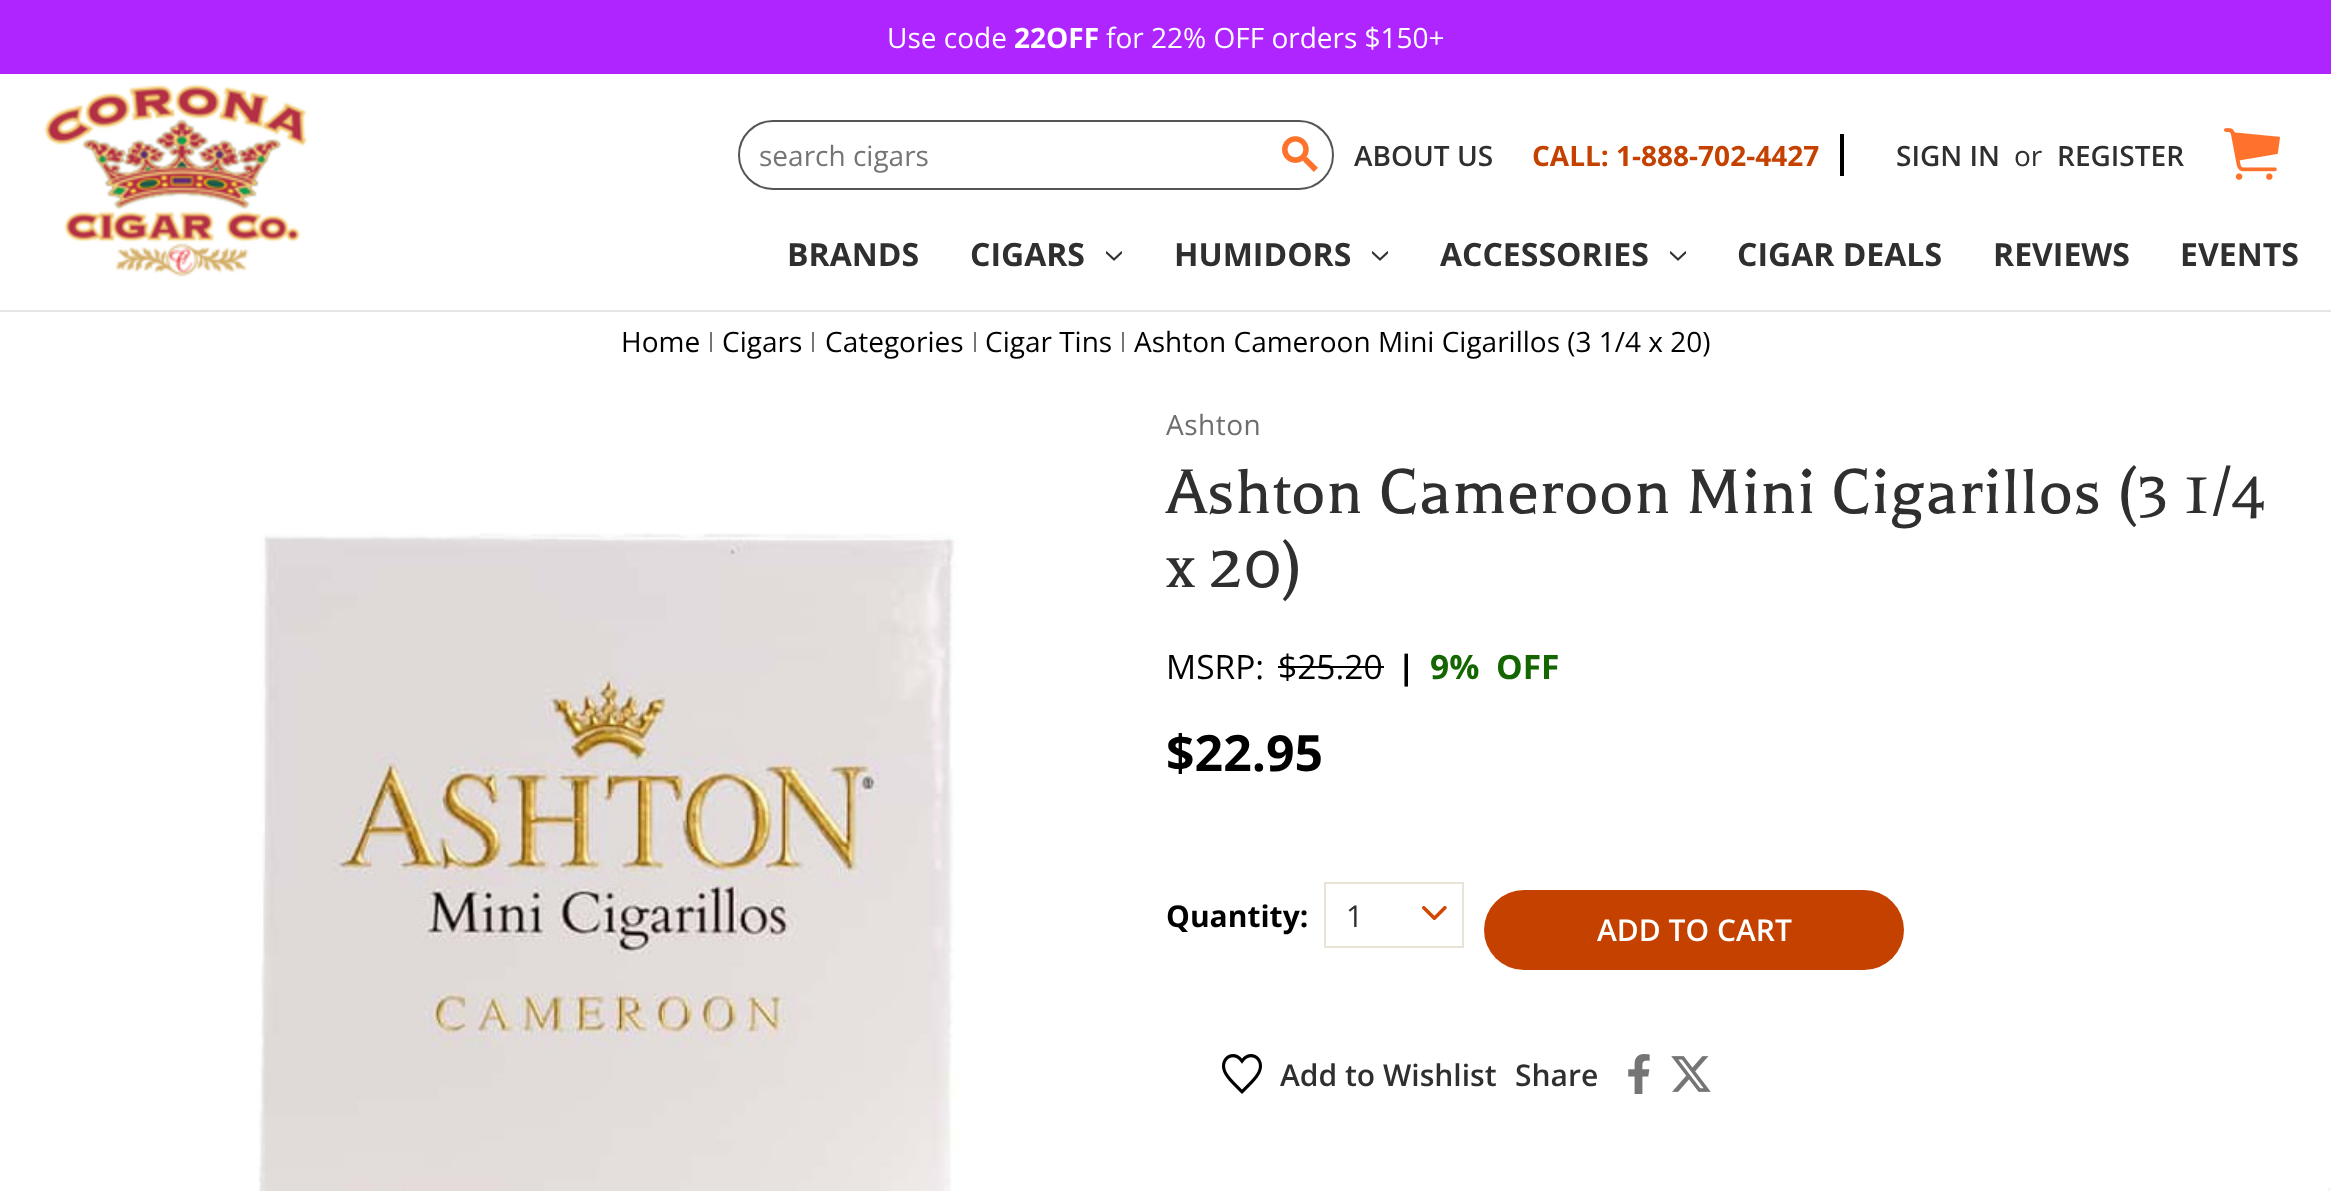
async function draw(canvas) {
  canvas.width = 2331;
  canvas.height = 1191;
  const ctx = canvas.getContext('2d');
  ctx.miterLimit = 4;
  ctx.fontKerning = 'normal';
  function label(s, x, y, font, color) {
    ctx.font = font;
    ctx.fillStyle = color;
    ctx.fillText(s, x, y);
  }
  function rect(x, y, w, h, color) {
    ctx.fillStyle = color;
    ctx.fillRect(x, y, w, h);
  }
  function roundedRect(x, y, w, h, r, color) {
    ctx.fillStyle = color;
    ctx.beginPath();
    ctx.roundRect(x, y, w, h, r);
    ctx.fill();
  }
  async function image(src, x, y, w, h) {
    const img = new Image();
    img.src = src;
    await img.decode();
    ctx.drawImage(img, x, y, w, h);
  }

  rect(0, 0, 2331, 1191, '#fff');
  rect(0, 0, 2331, 74, '#af25ff');
  label('Use code', 887, 48, '28px Open Sans', '#fff');
  label('22OFF', 1014, 48, 'bold 28px "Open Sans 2"', '#fff');
  label('for 22% OFF orders $150+', 1106, 48, '28px Open Sans', '#fff');
  rect(0, 310, 2331, 2, '#e5e5e5');
  await image('assets/img1.png', 43, 83, 264, 194);
  ctx.beginPath();
  ctx.roundRect(739, 121, 594, 68, 34);
  ctx.strokeStyle = '#555';
  ctx.lineWidth = 2;
  ctx.stroke();
  label('search cigars', 759, 166, '28px Open Sans', '#757575');
  await image('assets/img2.png', 1282, 136, 36, 36);
  label('ABOUT US', 1354, 166, '600 28px Open Sans', '#2f2f2f');
  label('CALL: 1-888-702-4427', 1532, 166, 'bold 28px "Open Sans 2"', '#c44100');
  rect(1840, 134, 4, 42, '#000');
  label('SIGN IN', 1896, 166, '600 28px Open Sans', '#2f2f2f');
  label('or', 2014, 166, '28px Open Sans', '#2f2f2f');
  label('REGISTER', 2057, 166, '600 28px Open Sans', '#2f2f2f');
  await image('assets/img3.png', 2224, 128, 56, 52);
  label('BRANDS', 787, 266, 'bold 32px "Open Sans 2"', '#2f2f2f');
  label('CIGARS', 970, 266, 'bold 32px "Open Sans 2"', '#2f2f2f');
  await image('assets/img4.png', 1106, 251, 16, 10);
  label('HUMIDORS', 1174, 266, 'bold 32px "Open Sans 2"', '#2f2f2f');
  await image('assets/img4.png', 1372, 251, 16, 10);
  label('ACCESSORIES', 1440, 266, 'bold 32px "Open Sans 2"', '#2f2f2f');
  await image('assets/img4.png', 1670, 251, 16, 10);
  label('CIGAR DEALS', 1737, 266, 'bold 32px "Open Sans 2"', '#2f2f2f');
  label('REVIEWS', 1993, 266, 'bold 32px "Open Sans 2"', '#2f2f2f');
  label('EVENTS', 2180, 266, 'bold 32px "Open Sans 2"', '#2f2f2f');
  label('Home', 621, 352, '28px Open Sans', '#000');
  rect(710, 332, 2, 20, '#757575');
  label('Cigars', 722, 352, '28px Open Sans', '#000');
  rect(812, 332, 2, 20, '#757575');
  label('Categories', 825, 352, '28px Open Sans', '#000');
  rect(974, 332, 2, 20, '#757575');
  label('Cigar Tins', 985, 352, '28px Open Sans', '#000');
  rect(1122, 332, 2, 20, '#757575');
  label('Ashton Cameroon Mini Cigarillos (3 1/4 x 20)', 1134, 352, '28px Open Sans', '#000');
  await image('assets/img5.png', 258, 533, 700, 658);
  ctx.letterSpacing = '0.5px';
  label('Ashton', 1166, 435, '28px Open Sans', '#6e6e6e');
  label('Ashton Cameroon Mini Cigarillos (3 1/4', 1166, 513, '72px Balthazar', '#2f2f2f');
  label('x 20)', 1166, 587, '72px Balthazar', '#2f2f2f');
  ctx.letterSpacing = '0px';
  label('MSRP:', 1166, 679, '33.5px Open Sans', '#000');
  label('$25.20', 1278, 679, '33.5px Open Sans', '#000');
  rect(1278, 666, 106, 2, '#000');
  label('|', 1397, 679, 'bold 33.5px Open Sans', '#000');
  label('9%', 1430, 679, 'bold 33.5px Open Sans', '#136600');
  label('OFF', 1496, 679, 'bold 33.5px Open Sans', '#136600');
  label('$22.95', 1166, 771, 'bold 50px Open Sans', '#000');
  label('Quantity:', 1166, 927, 'bold 30px Open Sans', '#000');
  await image('assets/img6.png', 1422, 906, 25, 14);
  ctx.strokeStyle = '#e9e2d6';
  ctx.strokeRect(1325, 883, 138, 64);
  label('1', 1346, 927, '30px Open Sans', '#2f2f2f');
  roundedRect(1484, 890, 420, 80, 40, '#c44100');
  label('ADD TO CART', 1597, 941, '600 30px Open Sans', '#fff');
  await image('assets/img7.png', 1222, 1054, 40, 40);
  label('Add to Wishlist', 1280, 1086, '600 30px Open Sans', '#2f2f2f');
  label('Share', 1515, 1086, '600 30px Open Sans', '#2f2f2f');
  await image('assets/img8.png', 1628, 1054, 22, 40);
  await image('assets/img9.png', 1671, 1056, 40, 36);
  rect(2328, 1188, 3, 3, '#f5f5f5');
}

draw(document.querySelector('canvas'));
